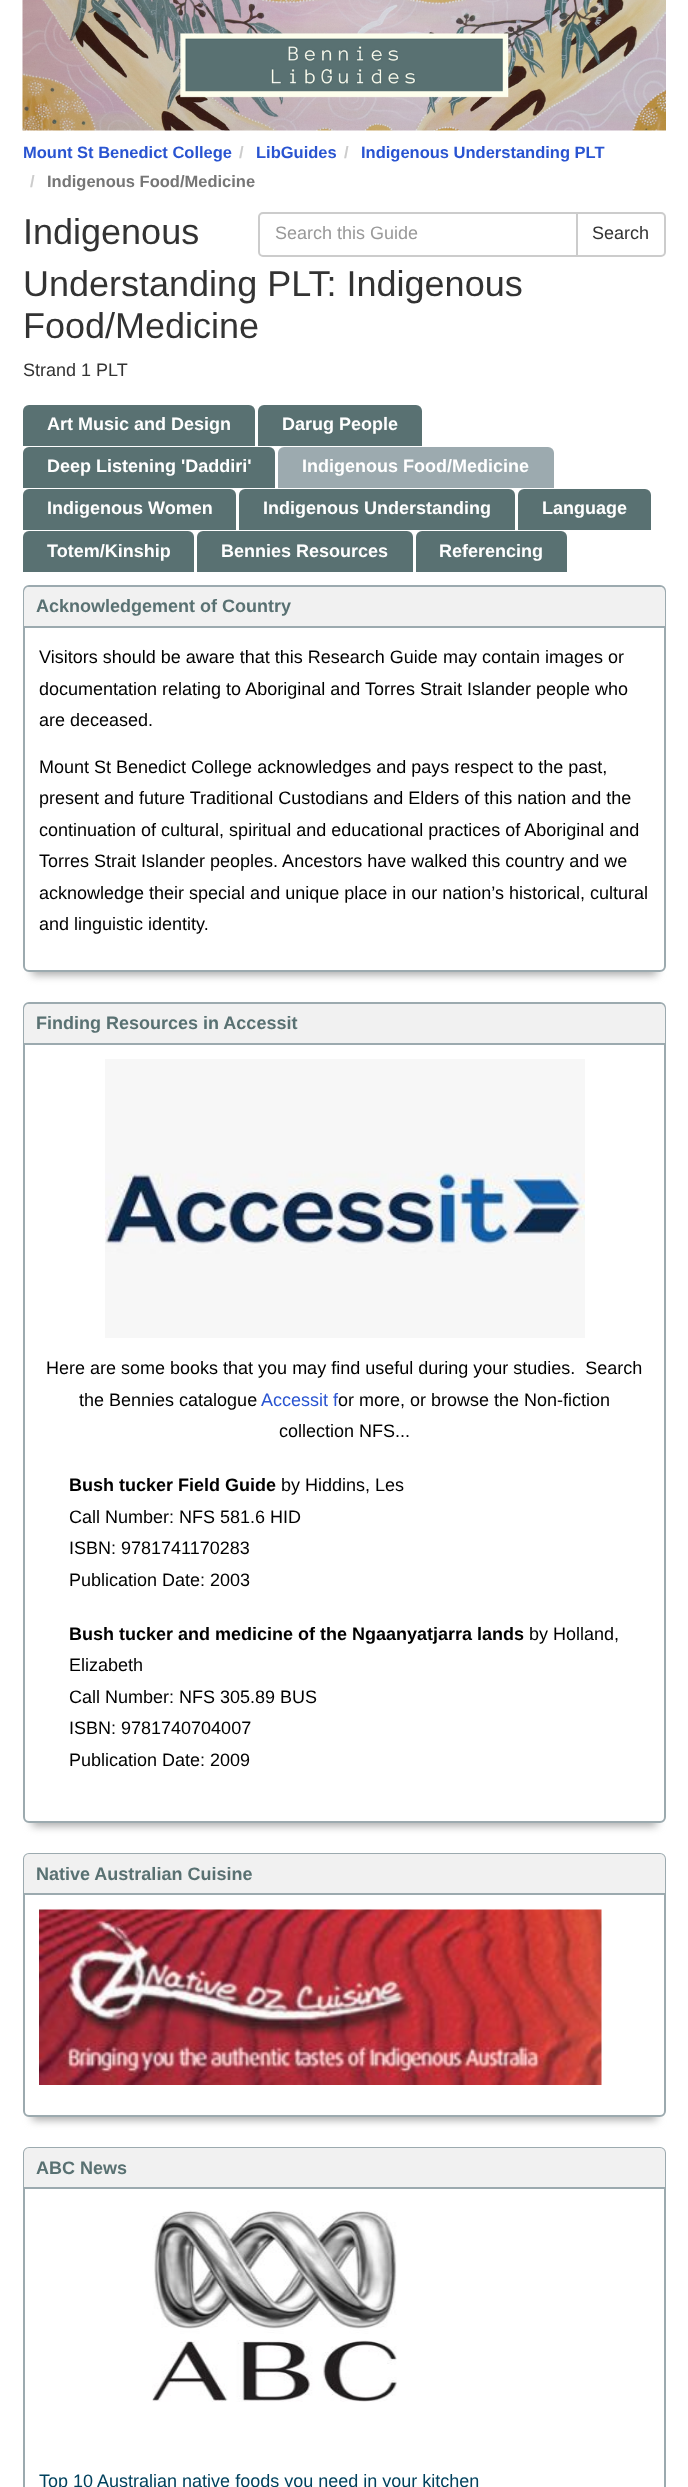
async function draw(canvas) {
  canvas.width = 688;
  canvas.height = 2487;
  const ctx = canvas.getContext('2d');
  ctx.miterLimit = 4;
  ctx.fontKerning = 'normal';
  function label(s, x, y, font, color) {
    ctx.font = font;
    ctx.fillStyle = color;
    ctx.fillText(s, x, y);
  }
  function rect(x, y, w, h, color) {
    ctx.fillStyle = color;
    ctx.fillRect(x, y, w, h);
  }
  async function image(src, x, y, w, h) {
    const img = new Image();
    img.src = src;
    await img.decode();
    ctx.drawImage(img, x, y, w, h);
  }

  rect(0, 0, 688, 2487, '#fff');
  await image('assets/img1.png', 22, 0, 644, 131);
  label('Mount St Benedict College', 23, 158, 'bold 16.5px Liberation Sans', '#2954d1');
  label('/', 239, 158, 'bold 16.5px Liberation Sans', '#ccc');
  label('LibGuides', 256, 158, 'bold 16.5px Liberation Sans', '#2954d1');
  label('/', 344, 158, 'bold 16.5px Liberation Sans', '#ccc');
  label('Indigenous Understanding PLT', 361, 158, 'bold 16.5px Liberation Sans', '#2954d1');
  label('/', 30, 187, 'bold 16.5px Liberation Sans', '#ccc');
  label('Indigenous Food/Medicine', 47, 187, 'bold 16.5px Liberation Sans', '#767676');
  label('Indigenous', 23, 244, '36px Liberation Sans', '#333');
  label('Understanding PLT: Indigenous', 23, 296, '36px Liberation Sans', '#333');
  label('Food/Medicine', 23, 338, '36px Liberation Sans', '#333');
  label('Strand 1 PLT', 23, 376, '18px Liberation Sans', '#333');
  ctx.beginPath();
  ctx.roundRect(259, 213, 318, 43, [4, 0, 0, 4]);
  ctx.strokeStyle = '#ccc';
  ctx.lineWidth = 2;
  ctx.stroke();
  label('Search this Guide', 275, 239, '18px Liberation Sans', '#999');
  ctx.fillStyle = '#fff';
  ctx.beginPath();
  ctx.roundRect(577, 213, 88, 43, [0, 4, 4, 0]);
  ctx.fill();
  ctx.stroke();
  label('Search', 592, 239, '18px Liberation Sans', '#333');
  ctx.fillStyle = '#597172';
  ctx.beginPath();
  ctx.roundRect(23, 405, 232, 41, [6, 6, 0, 0]);
  ctx.fill();
  label('Art Music and Design', 47, 430, 'bold 18px Liberation Sans', '#fff');
  ctx.fillStyle = '#597172';
  ctx.beginPath();
  ctx.roundRect(258, 405, 164, 41, [6, 6, 0, 0]);
  ctx.fill();
  label('Darug People', 282, 430, 'bold 18px Liberation Sans', '#fff');
  ctx.fillStyle = '#597172';
  ctx.beginPath();
  ctx.roundRect(23, 447, 252, 41, [6, 6, 0, 0]);
  ctx.fill();
  label('Deep Listening \'Daddiri\'', 47, 472, 'bold 18px Liberation Sans', '#fff');
  ctx.fillStyle = '#9caaaf';
  ctx.beginPath();
  ctx.roundRect(278, 447, 276, 41, [6, 6, 0, 0]);
  ctx.fill();
  label('Indigenous Food/Medicine', 302, 472, 'bold 18px Liberation Sans', '#fff');
  ctx.fillStyle = '#597172';
  ctx.beginPath();
  ctx.roundRect(23, 489, 213, 41, [6, 6, 0, 0]);
  ctx.fill();
  label('Indigenous Women', 47, 514, 'bold 18px Liberation Sans', '#fff');
  ctx.fillStyle = '#597172';
  ctx.beginPath();
  ctx.roundRect(239, 489, 276, 41, [6, 6, 0, 0]);
  ctx.fill();
  label('Indigenous Understanding', 263, 514, 'bold 18px Liberation Sans', '#fff');
  ctx.fillStyle = '#597172';
  ctx.beginPath();
  ctx.roundRect(518, 489, 133, 41, [6, 6, 0, 0]);
  ctx.fill();
  label('Language', 542, 514, 'bold 18px Liberation Sans', '#fff');
  ctx.fillStyle = '#597172';
  ctx.beginPath();
  ctx.roundRect(23, 531, 171, 41, [6, 6, 0, 0]);
  ctx.fill();
  label('Totem/Kinship', 47, 557, 'bold 18px Liberation Sans', '#fff');
  ctx.fillStyle = '#597172';
  ctx.beginPath();
  ctx.roundRect(197, 531, 216, 41, [6, 6, 0, 0]);
  ctx.fill();
  label('Bennies Resources', 221, 557, 'bold 18px Liberation Sans', '#fff');
  ctx.fillStyle = '#597172';
  ctx.beginPath();
  ctx.roundRect(416, 531, 151, 41, [6, 6, 0, 0]);
  ctx.fill();
  label('Referencing', 439, 557, 'bold 18px Liberation Sans', '#fff');
  ctx.fillStyle = '#aaa';
  ctx.filter = 'blur(4.5px)';
  ctx.beginPath();
  ctx.rect(32, 606, 625, 369);
  ctx.fill();
  ctx.filter = 'none';
  ctx.fillStyle = '#fff';
  ctx.beginPath();
  ctx.roundRect(24, 586, 641, 385, 5);
  ctx.fill();
  ctx.strokeStyle = '#9caaaf';
  ctx.stroke();
  ctx.fillStyle = '#f1f1f1';
  ctx.beginPath();
  ctx.roundRect(24, 587, 641, 40, [5, 5, 0, 0]);
  ctx.fill();
  rect(24, 626, 641, 2, '#9caaaf');
  label('Acknowledgement of Country', 36, 612, 'bold 18px Liberation Sans', '#597172');
  label('Visitors should be aware that this Research Guide may contain images or', 39, 663, '18px Liberation Sans', '#000');
  label('documentation relating to Aboriginal and Torres Strait Islander people who', 39, 695, '18px Liberation Sans', '#000');
  label('are deceased.', 39, 726, '18px Liberation Sans', '#000');
  label('Mount St Benedict College acknowledges and pays respect to the past,', 39, 773, '18px Liberation Sans', '#000');
  label('present and future Traditional Custodians and Elders of this nation and the', 39, 804, '18px Liberation Sans', '#000');
  label('continuation of cultural, spiritual and educational practices of Aboriginal and', 39, 836, '18px Liberation Sans', '#000');
  label('Torres Strait Islander peoples. Ancestors have walked this country and we', 39, 867, '18px Liberation Sans', '#000');
  label('acknowledge their special and unique place in our nation’s historical, cultural', 39, 899, '18px Liberation Sans', '#000');
  label('and linguistic identity.', 39, 930, '18px Liberation Sans', '#000');
  ctx.fillStyle = '#aaa';
  ctx.filter = 'blur(4.5px)';
  ctx.beginPath();
  ctx.rect(32, 1023, 625, 803);
  ctx.fill();
  ctx.filter = 'none';
  ctx.fillStyle = '#fff';
  ctx.beginPath();
  ctx.roundRect(24, 1003, 641, 819, 5);
  ctx.fill();
  ctx.stroke();
  ctx.fillStyle = '#f1f1f1';
  ctx.beginPath();
  ctx.roundRect(24, 1004, 641, 40, [5, 5, 0, 0]);
  ctx.fill();
  rect(24, 1043, 641, 2, '#9caaaf');
  label('Finding Resources in Accessit', 36, 1029, 'bold 18px Liberation Sans', '#597172');
  await image('assets/img2.png', 105, 1059, 480, 279);
  label('Here are some books that you may find useful during your studies.  Search', 46, 1374, '18px Liberation Sans', '#000');
  label('the Bennies catalogue', 79, 1406, '18px Liberation Sans', '#000');
  label('Accessit f', 261, 1406, '18px Liberation Sans', '#2954d1');
  label('or more, or browse the Non-fiction', 338, 1406, '18px Liberation Sans', '#000');
  label('collection NFS...', 279, 1437, '18px Liberation Sans', '#000');
  label('Bush tucker Field Guide', 69, 1491, 'bold 18px Liberation Sans', '#000');
  label('by Hiddins, Les', 281, 1491, '18px Liberation Sans', '#000');
  label('Call Number: NFS 581.6 HID', 69, 1523, '18px Liberation Sans', '#000');
  label('ISBN: 9781741170283', 69, 1554, '18px Liberation Sans', '#000');
  label('Publication Date: 2003', 69, 1586, '18px Liberation Sans', '#000');
  label('Bush tucker and medicine of the Ngaanyatjarra lands', 69, 1640, 'bold 18px Liberation Sans', '#000');
  label('by Holland,', 529, 1640, '18px Liberation Sans', '#000');
  label('Elizabeth', 69, 1671, '18px Liberation Sans', '#000');
  label('Call Number: NFS 305.89 BUS', 69, 1703, '18px Liberation Sans', '#000');
  label('ISBN: 9781740704007', 69, 1734, '18px Liberation Sans', '#000');
  label('Publication Date: 2009', 69, 1766, '18px Liberation Sans', '#000');
  ctx.fillStyle = '#aaa';
  ctx.filter = 'blur(4.5px)';
  ctx.beginPath();
  ctx.rect(32, 1874, 625, 246);
  ctx.fill();
  ctx.filter = 'none';
  ctx.fillStyle = '#fff';
  ctx.beginPath();
  ctx.roundRect(24, 1854, 641, 262, 5);
  ctx.fill();
  ctx.stroke();
  ctx.fillStyle = '#f1f1f1';
  ctx.beginPath();
  ctx.roundRect(24, 1854, 641, 41, [5, 5, 0, 0]);
  ctx.fill();
  rect(24, 1893, 641, 2, '#9caaaf');
  label('Native Australian Cuisine', 36, 1880, 'bold 18px Liberation Sans', '#597172');
  await image('assets/img3.png', 39, 1909, 563, 176);
  ctx.beginPath();
  ctx.roundRect(24, 2148, 641, 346, 5);
  ctx.stroke();
  ctx.fillStyle = '#f1f1f1';
  ctx.beginPath();
  ctx.roundRect(24, 2148, 641, 41, [5, 5, 0, 0]);
  ctx.fill();
  rect(24, 2187, 641, 2, '#9caaaf');
  label('ABC News', 36, 2174, 'bold 18px Liberation Sans', '#597172');
  await image('assets/img4.png', 152, 2210, 245, 192);
  label('Top 10 Australian native foods you need in your kitchen', 39, 2487, '18px Liberation Sans', '#00415d');
}

draw(document.querySelector('canvas'));
